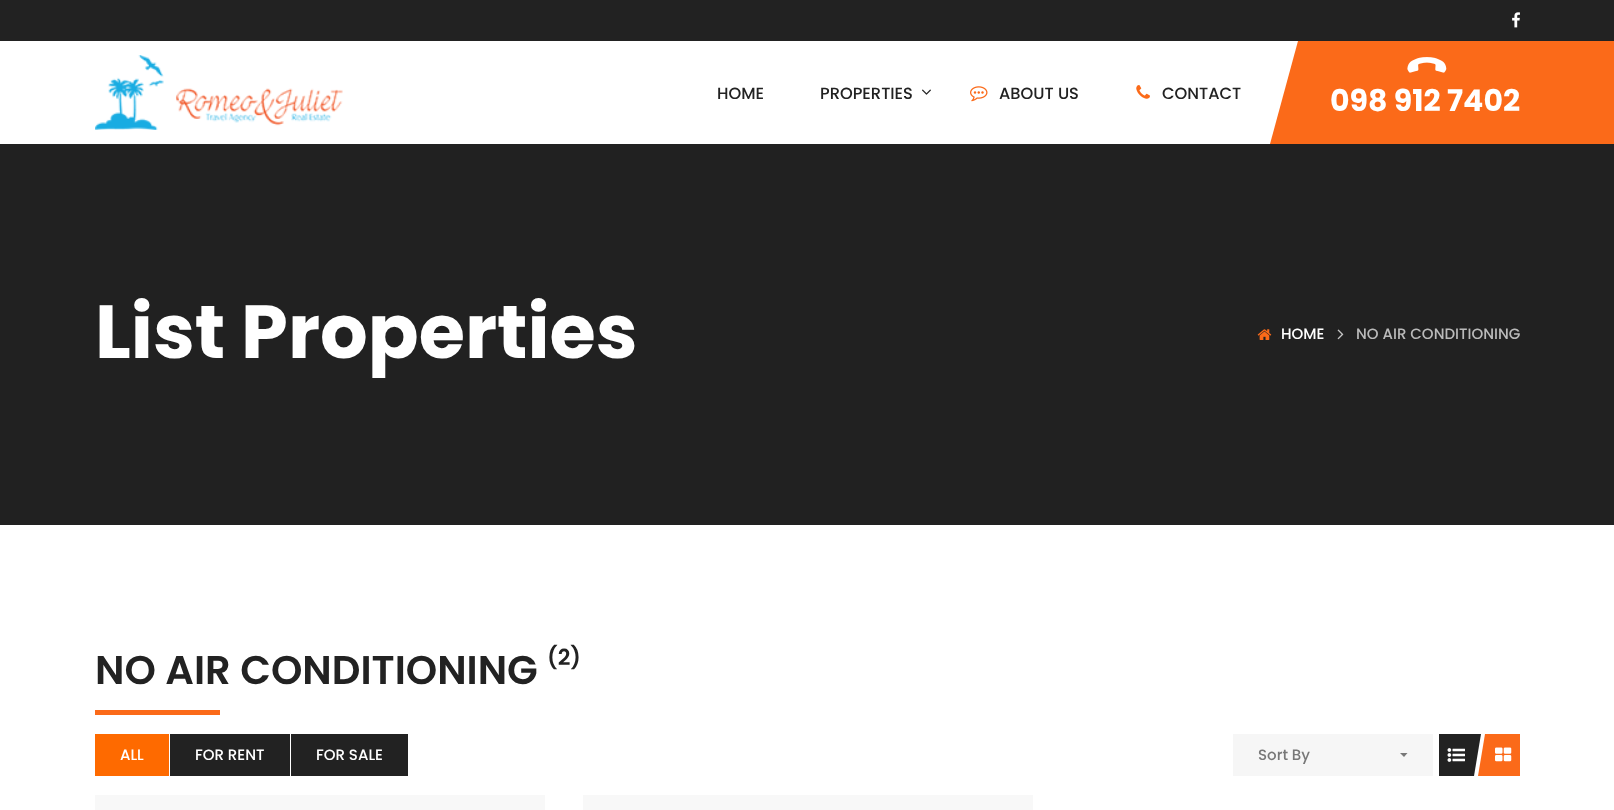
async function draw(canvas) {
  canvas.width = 1614;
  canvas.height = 810;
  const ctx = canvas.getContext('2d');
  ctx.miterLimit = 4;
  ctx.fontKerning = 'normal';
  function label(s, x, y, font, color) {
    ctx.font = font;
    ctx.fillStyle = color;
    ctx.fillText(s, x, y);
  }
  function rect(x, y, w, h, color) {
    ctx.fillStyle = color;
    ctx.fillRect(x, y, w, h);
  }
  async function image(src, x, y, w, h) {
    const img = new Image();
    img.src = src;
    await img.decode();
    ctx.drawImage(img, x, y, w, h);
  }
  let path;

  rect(0, 0, 1614, 810, '#fff');
  rect(0, 0, 1614, 41, '#222');
  await image('assets/img1.png', 1512, 12, 8, 16);
  await image('assets/img2.png', 95, 55, 248, 75);
  label('HOME', 717, 99, '500 16.25px Poppins', '#222');
  label('PROPERTIES', 820, 99, '500 16.25px Poppins', '#222');
  await image('assets/img3.png', 922, 89, 9, 6);
  await image('assets/img4.png', 970, 86, 18, 16);
  label('ABOUT US', 999, 99, '500 16.25px Poppins', '#222');
  await image('assets/img5.png', 1136, 85, 14, 14);
  label('CONTACT', 1162, 99, '500 16.25px Poppins', '#222');
  rect(1298, 41, 316, 103, '#fb6a19');
  path = new Path2D('M1298 144H1270L1298 41Z');
  ctx.fill(path);
  await image('assets/img6.png', 1407, 57, 40, 16);
  label('098 912 7402', 1330, 111, 'bold 30px Poppins', '#fff');
  rect(0, 144, 1614, 381, '#212121');
  label('List Properties', 95, 358, 'bold 75px Poppins', '#fff');
  await image('assets/img7.png', 1257, 329, 15, 11);
  label('HOME', 1281, 339, '500 15px Poppins', '#fff');
  await image('assets/img8.png', 1337, 329, 7, 11);
  label('NO AIR CONDITIONING', 1356, 339, '500 15px Poppins', '#bababa');
  label('NO AIR CONDITIONING', 95, 684, '600 40px Poppins', '#222');
  label('(2)', 547, 665, '600 22px Poppins', '#222');
  rect(95, 710, 125, 5, '#fb6a19');
  rect(95, 734, 74, 42, '#fe6a00');
  label('ALL', 120, 760, '500 15px Poppins', '#fff');
  rect(170, 734, 120, 42, '#222');
  label('FOR RENT', 195, 760, '500 15px Poppins', '#fff');
  rect(291, 734, 117, 42, '#222');
  label('FOR SALE', 316, 760, '500 15px Poppins', '#fff');
  rect(1233, 734, 200, 42, '#f6f6f6');
  label('Sort By', 1258, 760, '500 15px Poppins', '#787878');
  path = new Path2D('M1400 753H1407.5L1404 757Z');
  ctx.fill(path);
  rect(1439, 734, 35, 42, '#222');
  await image('assets/img9.png', 1447, 748, 18, 14);
  path = new Path2D('M1474 734H1481L1474 776Z');
  ctx.fill(path);
  rect(1485, 734, 35, 42, '#fb6a19');
  path = new Path2D('M1485 776H1478L1485 734Z');
  ctx.fill(path);
  await image('assets/img10.png', 1495, 747, 17, 15);
  rect(95, 795, 450, 15, '#f8f8f8');
  rect(583, 795, 450, 15, '#f8f8f8');
}

draw(document.querySelector('canvas'));
